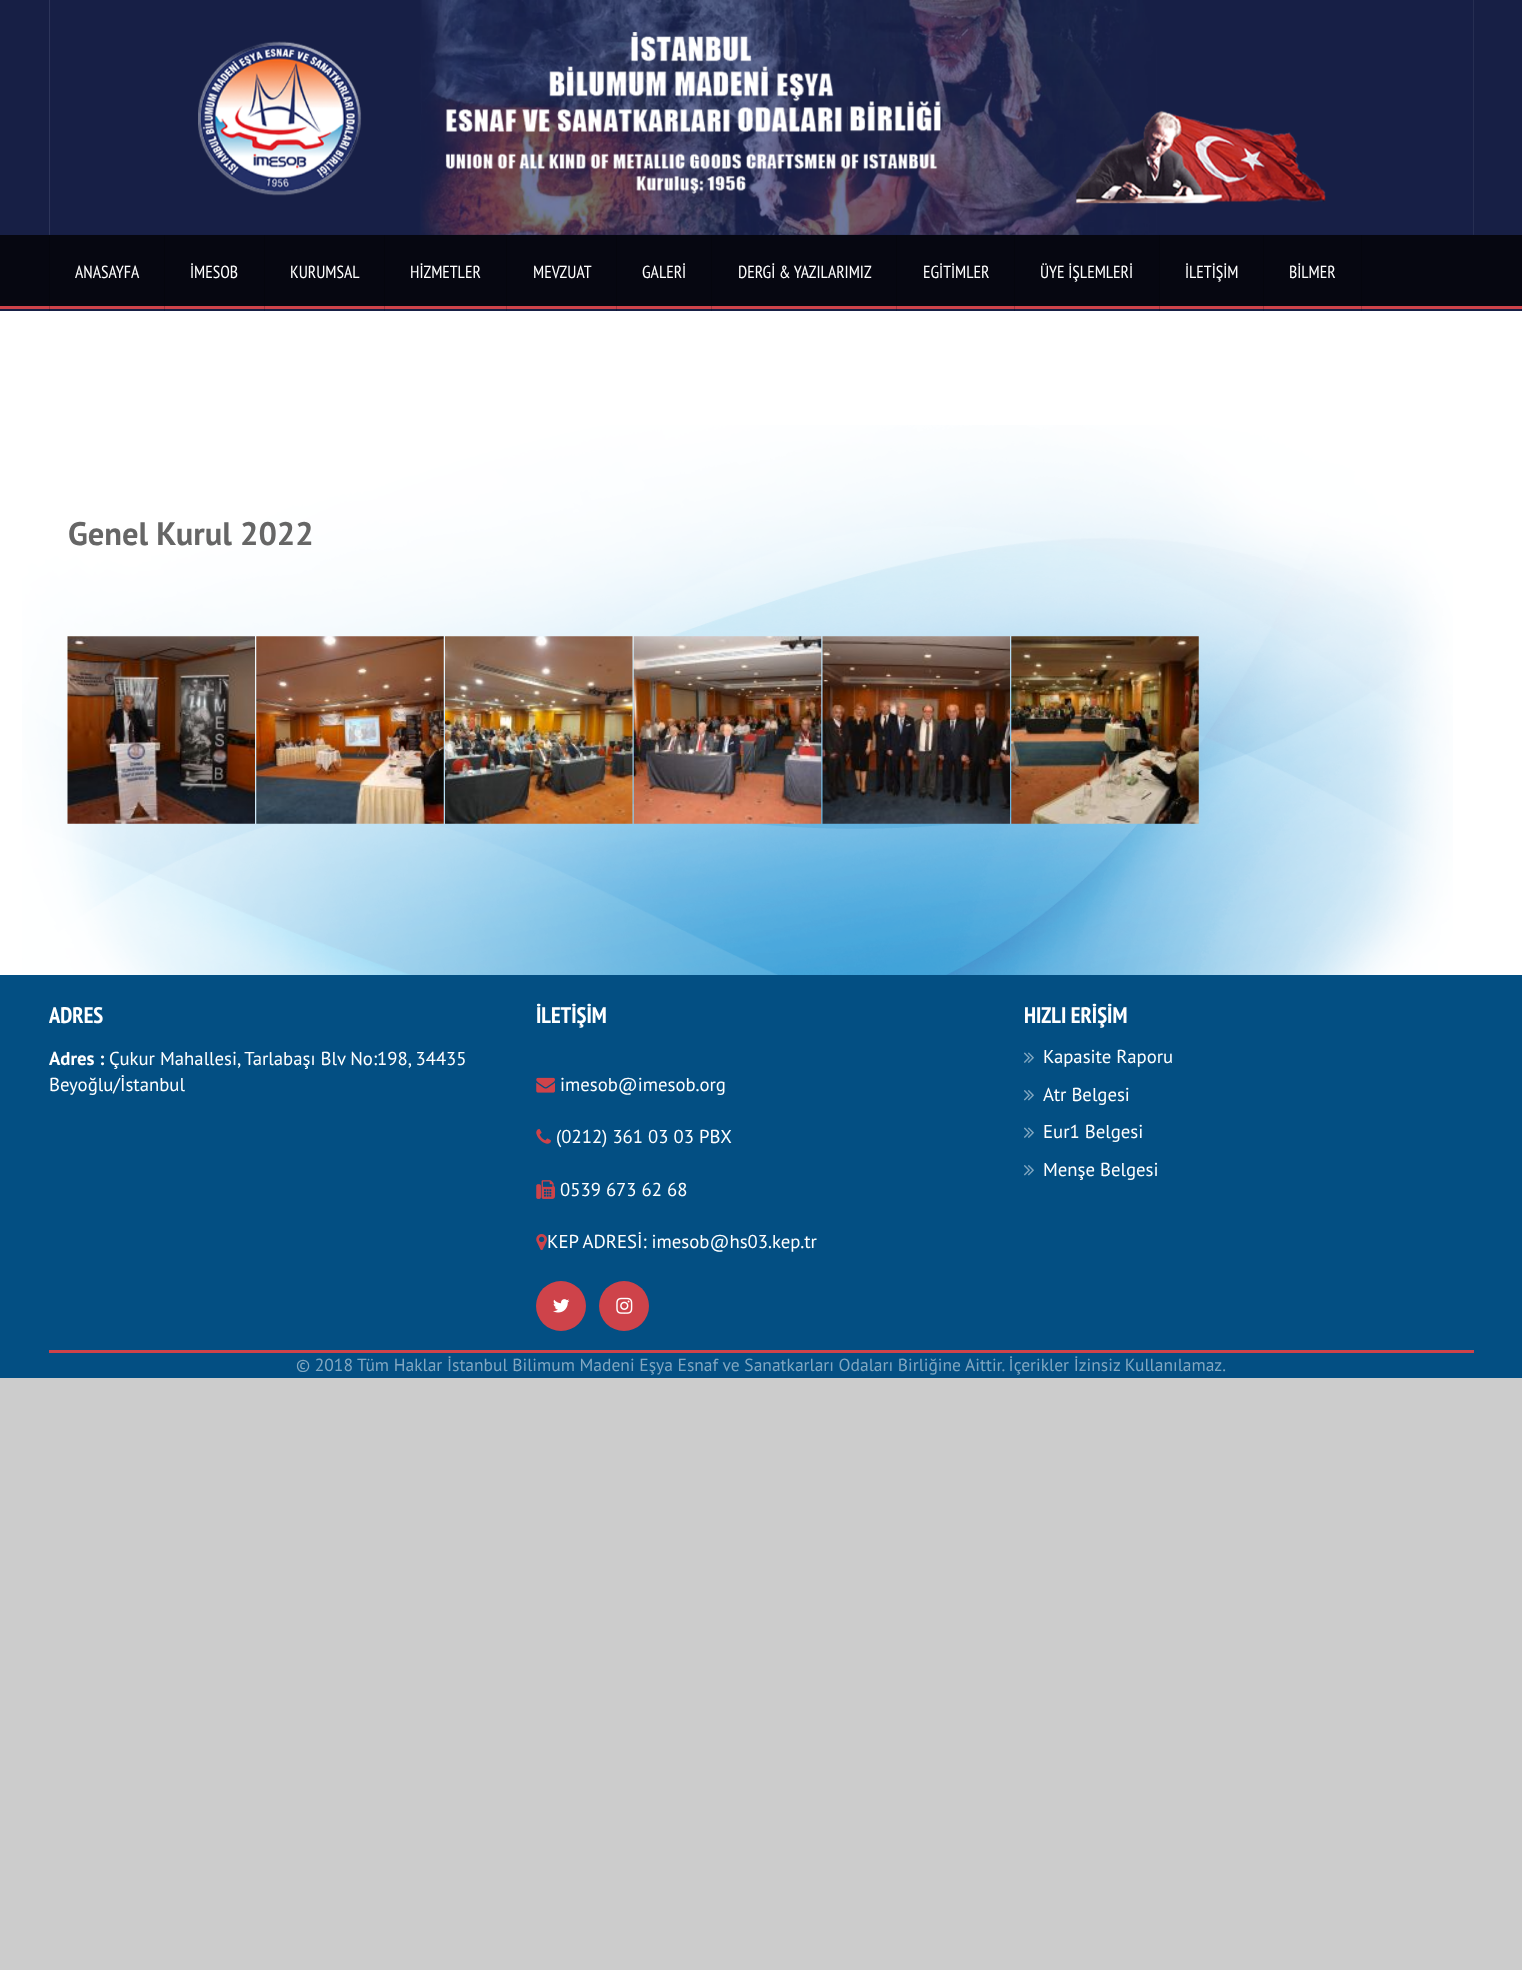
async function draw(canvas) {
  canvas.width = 1522;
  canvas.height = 1970;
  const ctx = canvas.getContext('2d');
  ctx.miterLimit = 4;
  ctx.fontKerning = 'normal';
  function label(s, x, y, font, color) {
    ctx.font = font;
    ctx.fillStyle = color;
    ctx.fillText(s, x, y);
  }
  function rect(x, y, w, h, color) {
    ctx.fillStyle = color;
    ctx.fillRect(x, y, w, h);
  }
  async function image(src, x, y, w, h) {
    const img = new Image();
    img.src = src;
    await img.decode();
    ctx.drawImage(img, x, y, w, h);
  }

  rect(0, 0, 1522, 1970, '#ccc');
  rect(0, 311, 1522, 664, '#fff');
  rect(0, 0, 1522, 311, '#171f45');
  rect(1361, 309, 1, 2, '#121937');
  rect(1263, 309, 1, 2, '#121937');
  rect(1159, 309, 1, 2, '#121937');
  rect(1014, 309, 1, 2, '#121937');
  rect(896, 309, 1, 2, '#121937');
  rect(711, 309, 1, 2, '#121937');
  rect(616, 309, 1, 2, '#121937');
  rect(506, 309, 1, 2, '#121937');
  rect(384, 309, 1, 2, '#121937');
  rect(264, 309, 1, 2, '#121937');
  rect(164, 309, 1, 2, '#121937');
  rect(49, 309, 1, 2, '#121937');
  await image('assets/img1.png', 49, 0, 1425, 235);
  rect(0, 235, 1522, 71, '#060711');
  rect(1361, 235, 1, 74, '#05060e');
  rect(1263, 235, 1, 74, '#05060e');
  rect(1159, 235, 1, 74, '#05060e');
  rect(1014, 235, 1, 74, '#05060e');
  rect(896, 235, 1, 74, '#05060e');
  rect(711, 235, 1, 74, '#05060e');
  rect(616, 235, 1, 74, '#05060e');
  rect(506, 235, 1, 74, '#05060e');
  rect(384, 235, 1, 74, '#05060e');
  rect(264, 235, 1, 74, '#05060e');
  rect(164, 235, 1, 74, '#05060e');
  rect(49, 235, 1, 74, '#05060e');
  rect(0, 306, 1522, 3, '#ce434a');
  rect(1361, 306, 1, 3, '#a5363b');
  rect(1263, 306, 1, 3, '#a5363b');
  rect(1159, 306, 1, 3, '#a5363b');
  rect(1014, 306, 1, 3, '#a5363b');
  rect(896, 306, 1, 3, '#a5363b');
  rect(711, 306, 1, 3, '#a5363b');
  rect(616, 306, 1, 3, '#a5363b');
  rect(506, 306, 1, 3, '#a5363b');
  rect(384, 306, 1, 3, '#a5363b');
  rect(264, 306, 1, 3, '#a5363b');
  rect(164, 306, 1, 3, '#a5363b');
  rect(49, 306, 1, 3, '#a5363b');
  label('ANASAYFA', 75, 278, '17.5px PT Sans Narrow', '#fff');
  label('İMESOB', 190, 278, '17.5px PT Sans Narrow', '#fff');
  label('KURUMSAL', 290, 278, '17.5px PT Sans Narrow', '#fff');
  label('HİZMETLER', 410, 278, '17.5px PT Sans Narrow', '#fff');
  label('MEVZUAT', 533, 278, '17.5px PT Sans Narrow', '#fff');
  label('GALERİ', 642, 278, '17.5px PT Sans Narrow', '#fff');
  label('DERGİ & YAZILARIMIZ', 738, 278, '17.5px PT Sans Narrow', '#fff');
  label('EGİTİMLER', 923, 278, '17.5px PT Sans Narrow', '#fff');
  label('ÜYE İŞLEMLERİ', 1040, 278, '17.5px PT Sans Narrow', '#fff');
  label('İLETİŞİM', 1185, 278, '17.5px PT Sans Narrow', '#fff');
  label('BİLMER', 1289, 278, '17.5px PT Sans Narrow', '#fff');
  await image('assets/img2.png', 22, 425, 1431, 550);
  label('Genel Kurul 2022', 68, 545, 'bold 32.5px PT Sans', '#666');
  await image('assets/img3.png', 67, 636, 188, 188);
  await image('assets/img4.png', 256, 636, 188, 188);
  await image('assets/img5.png', 445, 636, 188, 188);
  await image('assets/img6.png', 633, 636, 189, 188);
  await image('assets/img7.png', 822, 636, 188, 188);
  await image('assets/img8.png', 1011, 636, 188, 188);
  rect(0, 975, 1522, 403, '#034f83');
  label('ADRES', 49, 1023, 'bold 22.5px PT Sans Narrow', '#fff');
  label('Adres :', 49, 1065, 'bold 18.75px PT Sans', '#fff');
  label('Çukur Mahallesi, Tarlabaşı Blv No:198, 34435', 109, 1065, '18.75px PT Sans', '#fff');
  label('Beyoğlu/İstanbul', 49, 1091, '18.75px PT Sans', '#fff');
  label('İLETİŞİM', 536, 1023, 'bold 22.5px PT Sans Narrow', '#fff');
  await image('assets/img9.png', 536, 1077, 19, 16);
  label('imesob@imesob.org', 560, 1091, '18.75px PT Sans', '#fff');
  await image('assets/img10.png', 536, 1129, 15, 15);
  label('(0212) 361 03 03 PBX', 556, 1143, '18.75px PT Sans', '#fff');
  await image('assets/img11.png', 536, 1180, 19, 19);
  label('0539 673 62 68', 560, 1196, '18.75px PT Sans', '#fff');
  await image('assets/img12.png', 536, 1234, 11, 17);
  label('KEP ADRESİ: imesob@hs03.kep.tr', 547, 1248, '18.75px PT Sans', '#fff');
  ctx.fillStyle = '#ce434a';
  ctx.beginPath();
  ctx.arc(561, 1306, 25, 0, 2 * Math.PI);
  ctx.fill();
  await image('assets/img13.png', 553, 1299, 17, 14);
  ctx.beginPath();
  ctx.arc(624, 1306, 25, 0, 2 * Math.PI);
  ctx.fill();
  await image('assets/img14.png', 616, 1297, 17, 17);
  label('HIZLI ERİŞİM', 1024, 1023, 'bold 22.5px PT Sans Narrow', '#fff');
  await image('assets/img15.png', 1024, 1052, 10, 11);
  label('Kapasite Raporu', 1043, 1063, '18.75px PT Sans', '#fff');
  await image('assets/img16.png', 1024, 1090, 10, 11);
  label('Atr Belgesi', 1043, 1101, '18.75px PT Sans', '#fff');
  await image('assets/img15.png', 1024, 1127, 10, 11);
  label('Eur1 Belgesi', 1043, 1138, '18.75px PT Sans', '#fff');
  await image('assets/img16.png', 1024, 1165, 10, 11);
  label('Menşe Belgesi', 1043, 1176, '18.75px PT Sans', '#fff');
  rect(49, 1350, 1425, 3, '#ce434a');
  label('© 2018 Tüm Haklar İstanbul Bilimum Madeni Eşya Esnaf ve Sanatkarları Odaları Birliğine Aittir. İçerikler İzinsiz Kullanılamaz.', 296, 1371, '17.5px PT Sans', '#81a7c1');
}

draw(document.querySelector('canvas'));
